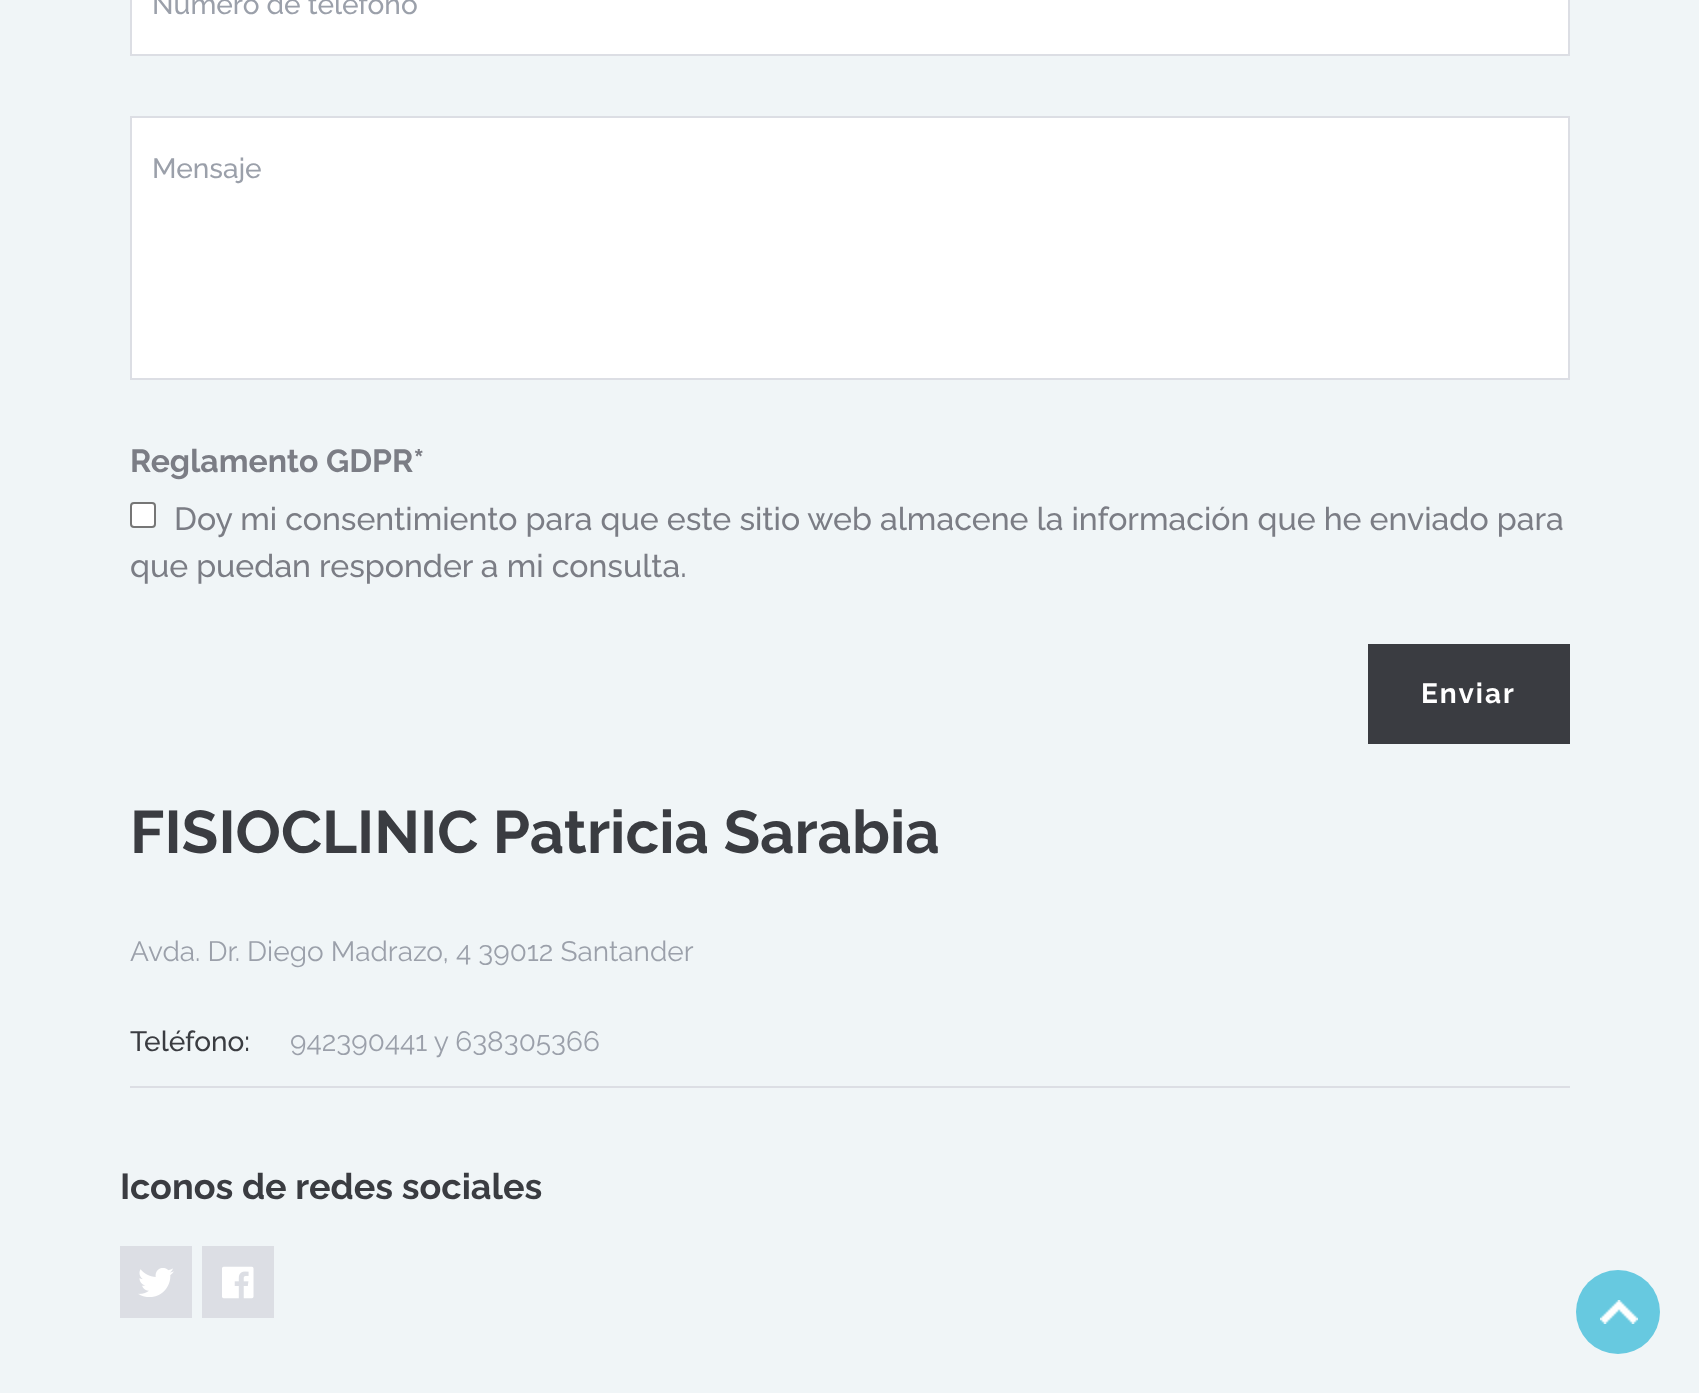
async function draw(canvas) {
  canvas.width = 1699;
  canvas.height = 1393;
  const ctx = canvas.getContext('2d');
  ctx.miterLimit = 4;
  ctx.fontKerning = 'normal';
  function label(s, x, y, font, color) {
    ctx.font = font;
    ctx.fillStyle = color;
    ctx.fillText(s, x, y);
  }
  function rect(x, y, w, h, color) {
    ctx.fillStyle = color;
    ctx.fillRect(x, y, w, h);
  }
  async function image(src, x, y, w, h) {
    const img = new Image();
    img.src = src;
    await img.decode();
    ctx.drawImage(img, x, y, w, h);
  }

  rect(0, 0, 1699, 1393, '#f0f5f7');
  ctx.fillStyle = '#fff';
  ctx.beginPath();
  ctx.rect(131, -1, 1438, 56);
  ctx.fill();
  ctx.strokeStyle = '#dcdee4';
  ctx.lineWidth = 2;
  ctx.stroke();
  label('Número de teléfono', 152, 14, '500 28px Raleway', '#9ba0aa');
  ctx.fillStyle = '#fff';
  ctx.beginPath();
  ctx.rect(131, 117, 1438, 262);
  ctx.fill();
  ctx.stroke();
  label('Mensaje', 152, 178, '500 28px Raleway', '#9ba0aa');
  label('Reglamento GDPR*', 130, 472, 'bold 32px Raleway', '#7b7d85');
  ctx.fillStyle = '#fff';
  ctx.beginPath();
  ctx.roundRect(131, 503, 24, 24, 3);
  ctx.fill();
  ctx.strokeStyle = '#767676';
  ctx.stroke();
  label('Doy mi consentimiento para que este sitio web almacene la información que he enviado para', 174, 530, '500 32px Raleway', '#7b7d85');
  label('que puedan responder a mi consulta.', 130, 577, '500 32px Raleway', '#7b7d85');
  rect(1368, 644, 202, 100, '#3a3c41');
  ctx.letterSpacing = '2px';
  label('Enviar', 1421, 703, 'bold 28px Raleway', '#fff');
  rect(130, 1086, 1440, 2, '#dcdee4');
  ctx.letterSpacing = '0px';
  label('FISIOCLINIC Patricia Sarabia', 130, 853, 'bold 60px Raleway', '#3a3c41');
  label('Avda. Dr. Diego Madrazo, 4 39012 Santander', 130, 961, '28px Raleway', '#9ba0aa');
  label('Teléfono:', 130, 1051, '500 28px Raleway', '#3a3c41');
  label('942390441 y 638305366', 290, 1051, '28px Raleway', '#9ba0aa');
  label('Iconos de redes sociales', 120, 1199, 'bold 36px Raleway', '#3a3c41');
  rect(120, 1246, 72, 72, '#dcdee4');
  await image('assets/img1.png', 138, 1268, 36, 29);
  rect(202, 1246, 72, 72, '#dcdee4');
  await image('assets/img2.png', 222, 1266, 32, 33);
  ctx.fillStyle = '#67c9e0';
  ctx.beginPath();
  ctx.arc(1618, 1312, 42, 0, 2 * Math.PI);
  ctx.fill();
  await image('assets/img3.png', 1600, 1300, 38, 24);
}

draw(document.querySelector('canvas'));
